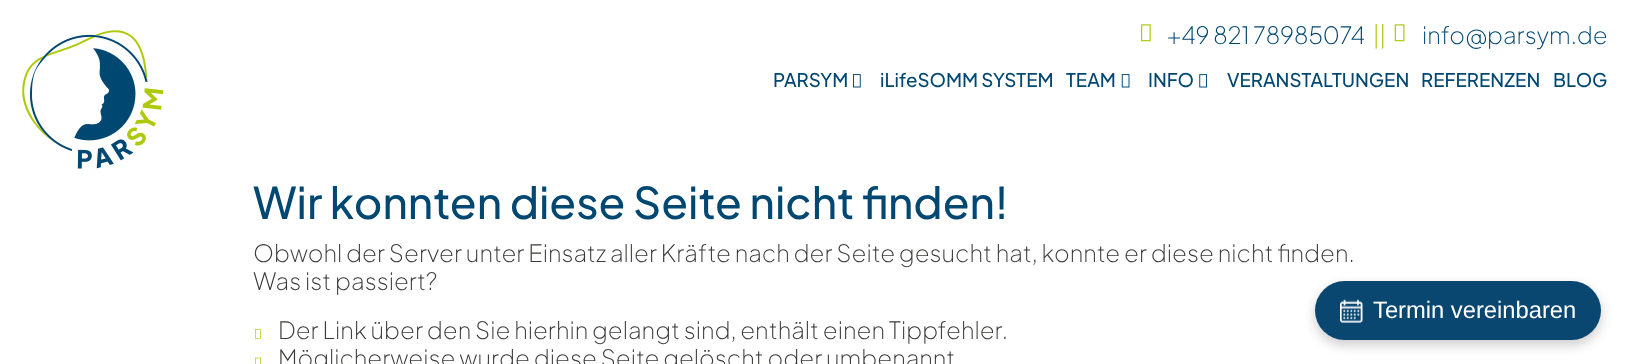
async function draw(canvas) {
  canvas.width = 1626;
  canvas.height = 364;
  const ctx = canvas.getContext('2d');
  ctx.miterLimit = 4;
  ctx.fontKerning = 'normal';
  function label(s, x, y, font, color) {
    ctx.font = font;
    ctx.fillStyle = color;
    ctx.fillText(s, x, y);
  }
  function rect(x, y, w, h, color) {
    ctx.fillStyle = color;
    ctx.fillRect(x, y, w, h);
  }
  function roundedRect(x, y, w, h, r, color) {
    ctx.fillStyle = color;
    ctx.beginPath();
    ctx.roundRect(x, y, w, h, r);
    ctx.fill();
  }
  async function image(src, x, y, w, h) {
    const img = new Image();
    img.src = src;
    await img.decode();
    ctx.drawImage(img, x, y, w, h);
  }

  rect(0, 0, 1626, 364, '#fff');
  await image('assets/img1.png', 22, 30, 142, 139);
  await image('assets/img2.png', 1141, 24, 10, 18);
  label('+49 821 78985074', 1167, 44, '200 23.75px Plus Jakarta Sans', '#004771');
  label('||', 1373, 44, '200 23.75px Plus Jakarta Sans', '#afca0b');
  await image('assets/img3.png', 1394, 24, 11, 18);
  label('info@parsym.de', 1422, 44, '200 23.75px Plus Jakarta Sans', '#004771');
  label('PARSYM', 773, 87, '500 18.75px Plus Jakarta Sans', '#004771');
  await image('assets/img4.png', 853, 74, 8, 14);
  label('iLifeSOMM SYSTEM', 880, 87, '500 18.75px Plus Jakarta Sans', '#004771');
  label('TEAM', 1066, 87, '500 18.75px Plus Jakarta Sans', '#004771');
  await image('assets/img5.png', 1121, 74, 9, 14);
  label('INFO', 1148, 87, '500 18.75px Plus Jakarta Sans', '#004771');
  await image('assets/img6.png', 1199, 74, 8, 14);
  label('VERANSTALTUNGEN', 1227, 87, '500 18.75px Plus Jakarta Sans', '#004771');
  label('REFERENZEN', 1421, 87, '500 18.75px Plus Jakarta Sans', '#004771');
  label('BLOG', 1553, 87, '500 18.75px Plus Jakarta Sans', '#004771');
  label('Wir konnten diese Seite nicht finden!', 253, 219, '500 43.75px Plus Jakarta Sans', '#004771');
  label('Obwohl der Server unter Einsatz aller Kräfte nach der Seite gesucht hat, konnte er diese nicht finden.', 253, 262, '200 23.75px Plus Jakarta Sans', '#3a3a39');
  label('Was ist passiert?', 253, 290, '200 23.75px Plus Jakarta Sans', '#3a3a39');
  await image('assets/img7.png', 255, 328, 6, 11);
  label('Der Link über den Sie hierhin gelangt sind, enthält einen Tippfehler.', 278, 339, '200 23.75px Plus Jakarta Sans', '#3a3a39');
  await image('assets/img8.png', 255, 357, 6, 7);
  label('Möglicherweise wurde diese Seite gelöscht oder umbenannt', 278, 367, '200 23.75px Plus Jakarta Sans', '#3a3a39');
  ctx.fillStyle = '#00000033';
  ctx.filter = 'blur(6px)';
  ctx.beginPath();
  ctx.roundRect(1315, 286, 286, 59, 29.5);
  ctx.fill();
  ctx.filter = 'none';
  roundedRect(1315, 281, 286, 59, 29.5, '#094771');
  await image('assets/img9.png', 1340, 299, 23, 24);
  label('Termin vereinbaren', 1373, 318, '23.75px Liberation Sans', '#fff');
}

draw(document.querySelector('canvas'));
